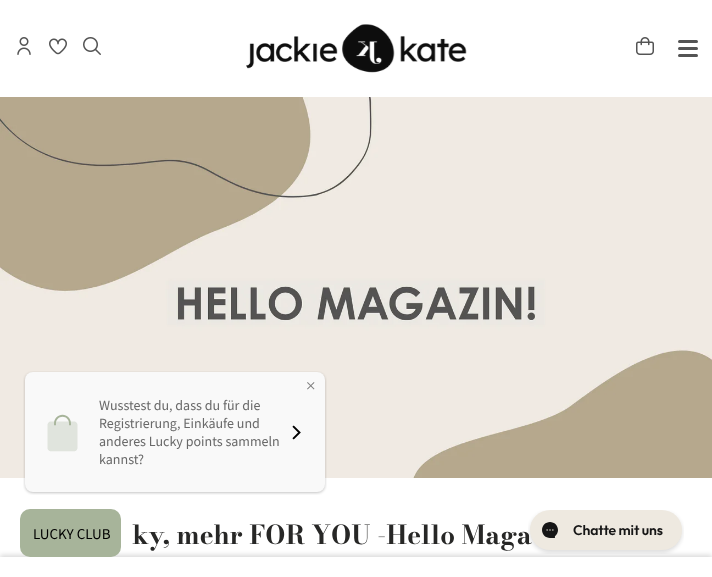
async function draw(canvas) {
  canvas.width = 712;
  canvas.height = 577;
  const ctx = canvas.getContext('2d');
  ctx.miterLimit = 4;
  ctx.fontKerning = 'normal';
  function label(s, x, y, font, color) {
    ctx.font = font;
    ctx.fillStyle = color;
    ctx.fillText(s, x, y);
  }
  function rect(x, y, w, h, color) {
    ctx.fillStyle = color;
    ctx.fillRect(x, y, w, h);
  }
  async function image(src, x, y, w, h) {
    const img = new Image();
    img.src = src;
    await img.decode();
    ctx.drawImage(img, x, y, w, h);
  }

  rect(0, 0, 712, 577, '#fff');
  await image('assets/img8.png', 0, 97, 712, 381);
  await image('assets/img1.png', 23, 371, 304, 124);
  ctx.fillStyle = '#00000026';
  ctx.filter = 'blur(2.5px)';
  ctx.beginPath();
  ctx.rect(0, 555, 712, 20);
  ctx.fill();
  ctx.filter = 'none';
  await image('assets/img2.png', 20, 509, 101, 48);
  await image('assets/img3.png', 246, 24, 221, 49);
  await image('assets/img4.png', 17, 37, 14, 18);
  await image('assets/img5.png', 49, 38, 18, 17);
  await image('assets/img6.png', 83, 37, 18, 18);
  await image('assets/img7.png', 636, 37, 18, 18);
  ctx.fillStyle = '#545454';
  ctx.beginPath();
  ctx.roundRect(678, 40, 17, 3, [1.5, 0, 0, 1.5]);
  ctx.fill();
  ctx.beginPath();
  ctx.roundRect(681, 40, 17, 3, [0, 1.5, 1.5, 0]);
  ctx.fill();
  ctx.beginPath();
  ctx.roundRect(678, 47, 17, 3, [1.5, 0, 0, 1.5]);
  ctx.fill();
  ctx.beginPath();
  ctx.roundRect(681, 47, 17, 3, [0, 1.5, 1.5, 0]);
  ctx.fill();
  ctx.beginPath();
  ctx.roundRect(678, 54, 17, 3, [1.5, 0, 0, 1.5]);
  ctx.fill();
  ctx.beginPath();
  ctx.roundRect(681, 54, 17, 3, [0, 1.5, 1.5, 0]);
  ctx.fill();
  label('ky, mehr FOR YOU -Hello Maga', 132, 544, 'bold 26px Bodoni Moda', '#272726');
  rect(0, 557, 712, 20, '#fff');
  await image('assets/img9.png', 528, 510, 156, 44);
}

draw(document.querySelector('canvas'));
